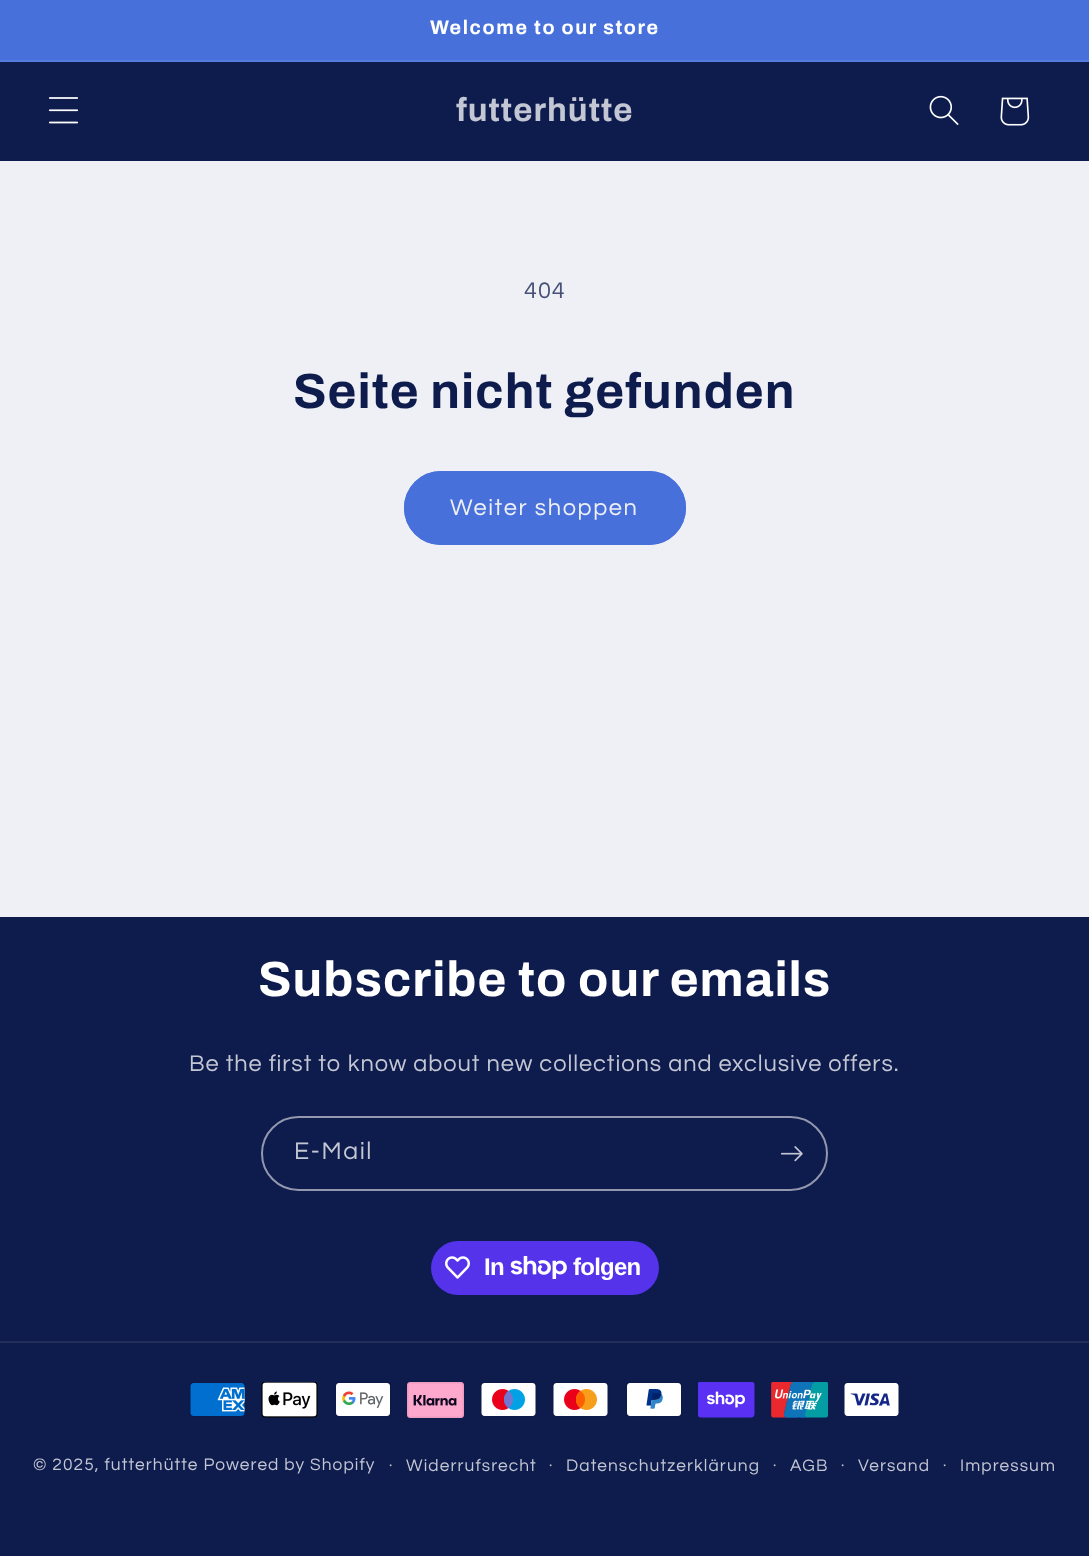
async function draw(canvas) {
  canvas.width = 1089;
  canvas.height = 1556;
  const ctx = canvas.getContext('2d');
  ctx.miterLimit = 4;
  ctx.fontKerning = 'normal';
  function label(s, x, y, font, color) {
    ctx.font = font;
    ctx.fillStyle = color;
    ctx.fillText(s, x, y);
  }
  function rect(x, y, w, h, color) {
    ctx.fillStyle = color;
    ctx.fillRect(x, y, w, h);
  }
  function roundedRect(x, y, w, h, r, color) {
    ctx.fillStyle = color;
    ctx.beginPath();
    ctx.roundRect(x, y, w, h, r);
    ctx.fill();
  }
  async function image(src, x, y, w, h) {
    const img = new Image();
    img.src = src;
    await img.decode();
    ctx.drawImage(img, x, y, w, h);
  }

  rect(0, 0, 1089, 1556, '#eff0f5');
  rect(0, 0, 1089, 60, '#4770db');
  rect(0, 60, 1089, 2, '#567bde');
  ctx.letterSpacing = '1.6px';
  label('Welcome to our store', 430, 34, 'bold 19.75px Archivo', '#fff');
  rect(0, 62, 1089, 99, '#0e1b4d');
  await image('assets/img1.png', 48, 97, 31, 27);
  ctx.letterSpacing = '1px';
  label('futterhütte', 456, 121, 'bold 33px Archivo', '#c3c6d3');
  await image('assets/img2.png', 929, 95, 30, 30);
  await image('assets/img3.png', 1000, 97, 30, 29);
  ctx.letterSpacing = '0.95px';
  label('404', 524, 298, '23.6px Questrial', '#465077');
  ctx.letterSpacing = '1px';
  label('Seite nicht gefunden', 293, 408, 'bold 49.5px Archivo', '#0e1b4d');
  roundedRect(404, 471, 282, 74, 37, '#4770db');
  ctx.beginPath();
  ctx.roundRect(405, 472, 280, 72, 36);
  ctx.strokeStyle = '#4770db';
  ctx.lineWidth = 2;
  ctx.stroke();
  ctx.letterSpacing = '1.6px';
  label('Weiter shoppen', 450, 515, '23.6px Questrial', '#eff0f5');
  rect(0, 917, 1089, 639, '#0e1b4d');
  ctx.letterSpacing = '1px';
  label('Subscribe to our emails', 258, 996, 'bold 49.5px Archivo', '#fff');
  ctx.letterSpacing = '0.95px';
  label('Be the first to know about new collections and exclusive offers.', 189, 1071, '23.6px Questrial', '#c3c6d3');
  ctx.beginPath();
  ctx.roundRect(262, 1117, 565, 73, 36.5);
  ctx.strokeStyle = '#9398af';
  ctx.stroke();
  ctx.letterSpacing = '1.6px';
  label('E-Mail', 294, 1159, '25px Questrial', '#c3c6d3');
  await image('assets/img4.png', 780, 1146, 23, 16);
  roundedRect(431, 1241, 228, 54, 27, '#5433eb');
  await image('assets/img5.png', 445, 1256, 25, 23);
  ctx.letterSpacing = '-0.75px';
  label('In', 484, 1275, 'bold 24px Liberation Sans', '#fff');
  await image('assets/img6.png', 510, 1256, 57, 23);
  label('folgen', 573, 1275, 'bold 24px Liberation Sans', '#fff');
  rect(0, 1341, 1089, 2, '#212d5b');
  await image('assets/img7.png', 189, 1382, 57, 35);
  await image('assets/img8.png', 261, 1382, 57, 36);
  await image('assets/img9.png', 335, 1382, 56, 35);
  await image('assets/img10.png', 407, 1382, 57, 36);
  await image('assets/img11.png', 480, 1382, 57, 35);
  await image('assets/img12.png', 552, 1382, 57, 35);
  await image('assets/img13.png', 626, 1382, 56, 35);
  await image('assets/img14.png', 698, 1382, 57, 36);
  await image('assets/img15.png', 771, 1382, 57, 36);
  await image('assets/img16.png', 843, 1382, 57, 35);
  ctx.letterSpacing = '1.1px';
  label('© 2025, futterhütte Powered by Shopify', 33, 1470, '17.3px Questrial', '#c3c6d3');
  label('·', 389, 1470, '16px Questrial', '#c3c6d3');
  label('Widerrufsrecht', 406, 1471, '17.3px Questrial', '#c3c6d3');
  label('·', 549, 1470, '16px Questrial', '#c3c6d3');
  label('Datenschutzerklärung', 566, 1471, '17.3px Questrial', '#c3c6d3');
  label('·', 773, 1470, '16px Questrial', '#c3c6d3');
  label('AGB', 790, 1471, '17.3px Questrial', '#c3c6d3');
  label('·', 841, 1470, '16px Questrial', '#c3c6d3');
  label('Versand', 858, 1471, '17.3px Questrial', '#c3c6d3');
  label('·', 943, 1470, '16px Questrial', '#c3c6d3');
  label('Impressum', 960, 1471, '17.3px Questrial', '#c3c6d3');
}

draw(document.querySelector('canvas'));
